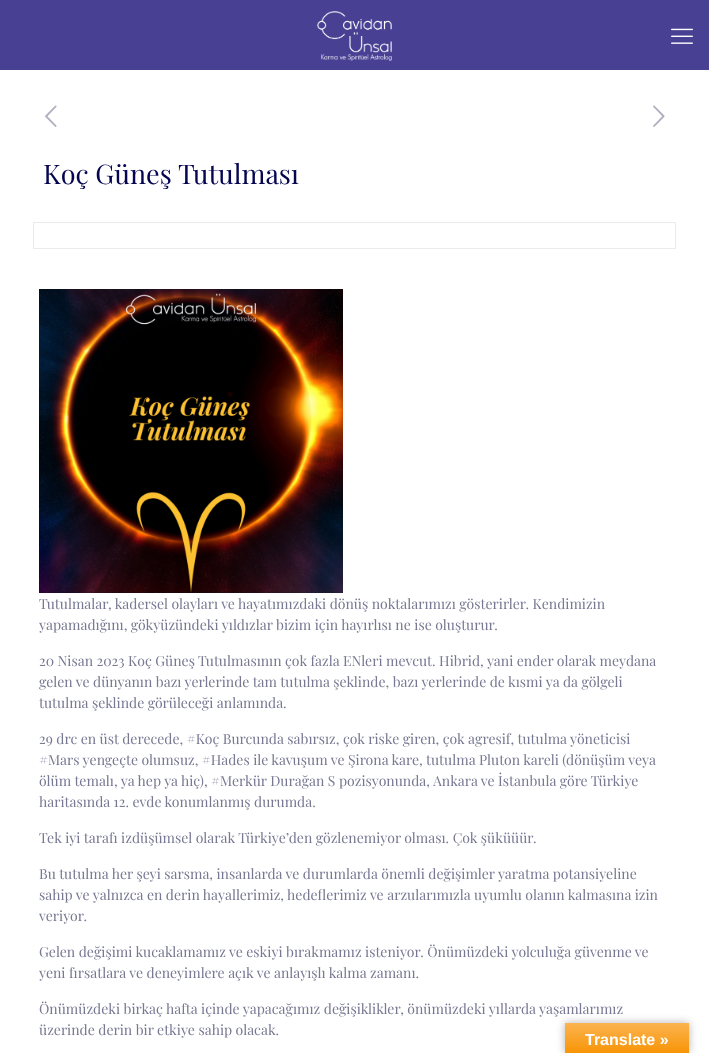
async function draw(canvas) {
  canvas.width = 709;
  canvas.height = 1053;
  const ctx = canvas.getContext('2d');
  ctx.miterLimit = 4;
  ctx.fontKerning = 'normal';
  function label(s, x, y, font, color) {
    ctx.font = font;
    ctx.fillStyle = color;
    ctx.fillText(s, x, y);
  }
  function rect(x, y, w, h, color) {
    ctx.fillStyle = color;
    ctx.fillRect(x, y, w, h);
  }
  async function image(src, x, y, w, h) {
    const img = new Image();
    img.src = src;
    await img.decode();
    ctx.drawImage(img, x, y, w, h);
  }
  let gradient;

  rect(0, 0, 709, 1053, '#484193');
  await image('assets/img1.png', 317, 11, 75, 50);
  await image('assets/img2.png', 671, 28, 22, 16);
  rect(0, 70, 709, 983, '#fff');
  await image('assets/img3.png', 45, 105, 12, 22);
  await image('assets/img4.png', 653, 105, 12, 22);
  label('Koç Güneş Tutulması', 43, 184, '27px Playfair Display', '#050551');
  ctx.strokeStyle = '#ebebeb';
  ctx.strokeRect(33.5, 222.5, 642, 26);
  await image('assets/img5.png', 39, 289, 304, 304);
  label('Tutulmalar, kadersel olayları ve hayatımızdaki dönüş noktalarımızı gösterirler. Kendimizin', 39, 609, '14px Playfair Display', '#777892');
  label('yapamadığını, gökyüzündeki yıldızlar bizim için hayırlısı ne ise oluşturur.', 39, 630, '14px Playfair Display', '#777892');
  label('20 Nisan 2023 Koç Güneş Tutulmasının çok fazla ENleri mevcut. Hibrid, yani ender olarak meydana', 39, 666, '14px Playfair Display', '#777892');
  label('gelen ve dünyanın bazı yerlerinde tam tutulma şeklinde, bazı yerlerinde de kısmi ya da gölgeli', 39, 687, '14px Playfair Display', '#777892');
  label('tutulma şeklinde görüleceği anlamında.', 39, 708, '14px Playfair Display', '#777892');
  label('29 drc en üst derecede, #Koç Burcunda sabırsız, çok riske giren, çok agresif, tutulma yöneticisi', 39, 744, '14px Playfair Display', '#777892');
  label('#Mars yengeçte olumsuz, #Hades ile kavuşum ve Şirona kare, tutulma Pluton kareli (dönüşüm veya', 39, 765, '14px Playfair Display', '#777892');
  label('ölüm temalı, ya hep ya hiç), #Merkür Durağan S pozisyonunda, Ankara ve İstanbula göre Türkiye', 39, 786, '14px Playfair Display', '#777892');
  label('haritasında 12. evde konumlanmış durumda.', 39, 807, '14px Playfair Display', '#777892');
  label('Tek iyi tarafı izdüşümsel olarak Türkiye’den gözlenemiyor olması. Çok şüküüür.', 39, 843, '14px Playfair Display', '#777892');
  label('Bu tutulma her şeyi sarsma, insanlarda ve durumlarda önemli değişimler yaratma potansiyeline', 39, 879, '14px Playfair Display', '#777892');
  label('sahip ve yalnızca en derin hayallerimiz, hedeflerimiz ve arzularımızla uyumlu olanın kalmasına izin', 39, 900, '14px Playfair Display', '#777892');
  label('veriyor.', 39, 921, '14px Playfair Display', '#777892');
  label('Gelen değişimi kucaklamamız ve eskiyi bırakmamız isteniyor. Önümüzdeki yolculuğa güvenme ve', 39, 957, '14px Playfair Display', '#777892');
  label('yeni fırsatlara ve deneyimlere açık ve anlayışlı kalma zamanı.', 39, 978, '14px Playfair Display', '#777892');
  label('Önümüzdeki birkaç hafta içinde yapacağımız değişiklikler, önümüzdeki yıllarda yaşamlarımız', 39, 1014, '14px Playfair Display', '#777892');
  label('üzerinde derin bir etkiye sahip olacak.', 39, 1035, '14px Playfair Display', '#777892');
  ctx.fillStyle = '#0000004d';
  ctx.filter = 'blur(4.5px)';
  ctx.beginPath();
  ctx.rect(565, 1023, 124, 30);
  ctx.fill();
  ctx.filter = 'none';
  gradient = ctx.createLinearGradient(627, 1023, 627, 1053);
  gradient.addColorStop(0, '#fbb450');
  gradient.addColorStop(1, '#f89406');
  ctx.fillStyle = gradient;
  ctx.fillRect(565, 1023, 124, 30);
  label('Translate »', 585, 1045, 'bold 16px Liberation Sans', '#fff');
}

draw(document.querySelector('canvas'));
